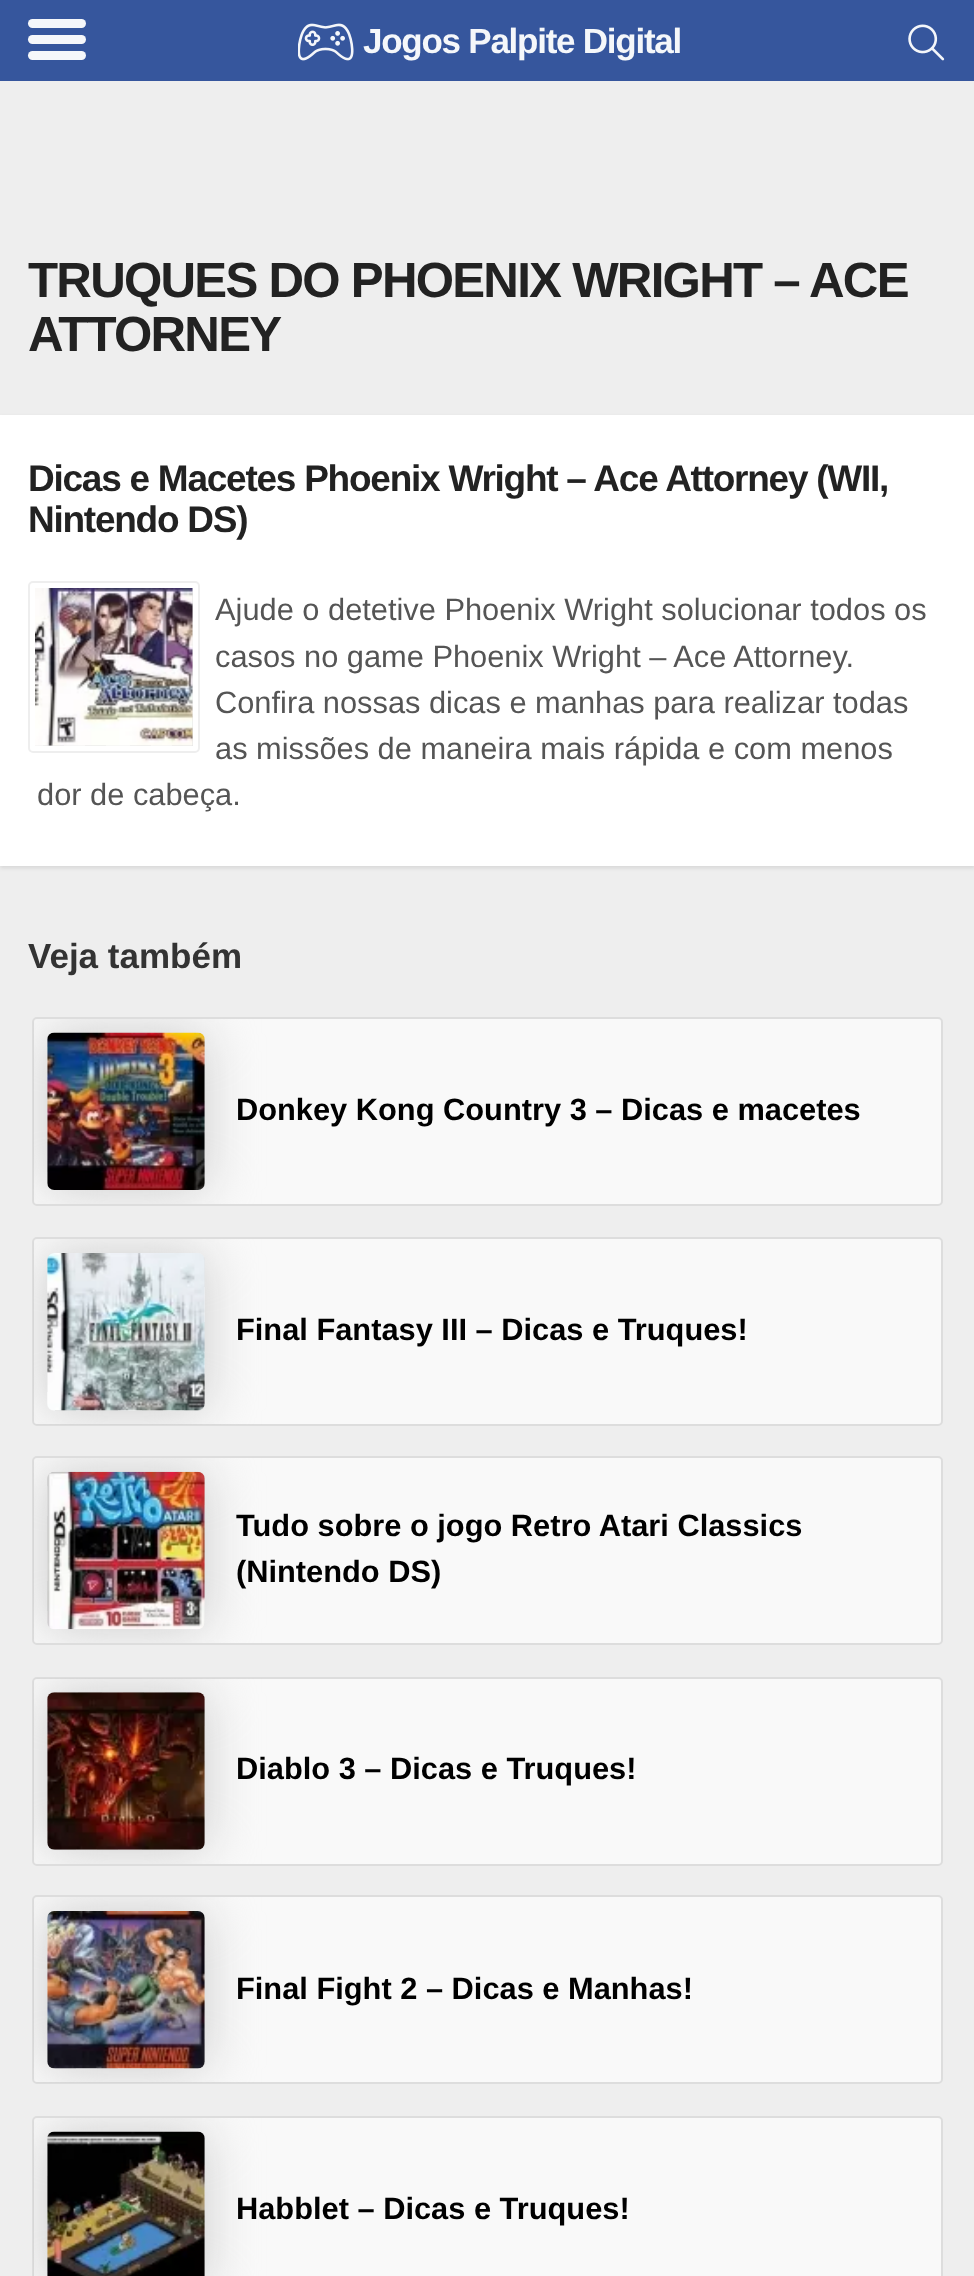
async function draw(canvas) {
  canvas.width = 974;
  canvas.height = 2276;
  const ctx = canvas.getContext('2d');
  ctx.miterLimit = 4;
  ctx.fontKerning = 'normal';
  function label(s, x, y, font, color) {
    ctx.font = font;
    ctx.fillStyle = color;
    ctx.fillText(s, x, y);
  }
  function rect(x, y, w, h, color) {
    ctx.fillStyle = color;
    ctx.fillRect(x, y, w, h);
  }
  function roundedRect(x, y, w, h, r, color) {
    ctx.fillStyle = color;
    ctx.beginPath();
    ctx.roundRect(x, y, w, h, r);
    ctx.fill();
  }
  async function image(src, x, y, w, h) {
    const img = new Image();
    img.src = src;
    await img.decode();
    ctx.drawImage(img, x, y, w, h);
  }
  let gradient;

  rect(0, 0, 974, 2276, '#36569d');
  roundedRect(28, 19, 58, 9, 4.5, '#f5f7fa');
  roundedRect(28, 35, 58, 9, 4.5, '#f5f7fa');
  roundedRect(28, 51, 58, 9, 4.5, '#f5f7fa');
  await image('assets/img1.png', 298, 23, 56, 38);
  ctx.letterSpacing = '-1.25px';
  label('Jogos Palpite Digital', 363, 53, 'bold 35px Liberation Sans', '#f5f7fa');
  await image('assets/img2.png', 908, 24, 37, 37);
  rect(0, 81, 974, 2195, '#eee');
  ctx.letterSpacing = '-1.75px';
  label('TRUQUES DO PHOENIX WRIGHT – ACE', 28, 297, 'bold 49.25px Liberation Sans', '#222');
  label('ATTORNEY', 28, 351, 'bold 49.25px Liberation Sans', '#222');
  ctx.fillStyle = '#0000001a';
  ctx.filter = 'blur(2px)';
  ctx.beginPath();
  ctx.rect(0, 417, 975, 451);
  ctx.fill();
  ctx.filter = 'none';
  rect(0, 415, 974, 451, '#fff');
  ctx.letterSpacing = '-1.25px';
  label('Dicas e Macetes Phoenix Wright – Ace Attorney (WII,', 28, 491, 'bold 37px Liberation Sans', '#222');
  label('Nintendo DS)', 28, 532, 'bold 37px Liberation Sans', '#222');
  ctx.beginPath();
  ctx.roundRect(29, 582, 170, 170, 4);
  ctx.strokeStyle = '#eee';
  ctx.lineWidth = 2;
  ctx.stroke();
  gradient = ctx.createLinearGradient(204, 730, 2.9, 589);
  gradient.addColorStop(0, '#e2e2e2');
  gradient.addColorStop(0.07, '#e2e2e2');
  gradient.addColorStop(0.07, '#f1f1f1');
  gradient.addColorStop(0.14, '#f1f1f1');
  gradient.addColorStop(0.14, '#e2e2e2');
  gradient.addColorStop(0.21, '#e2e2e2');
  gradient.addColorStop(0.21, '#f1f1f1');
  gradient.addColorStop(0.29, '#f1f1f1');
  gradient.addColorStop(0.29, '#e2e2e2');
  gradient.addColorStop(0.36, '#e2e2e2');
  gradient.addColorStop(0.36, '#f1f1f1');
  gradient.addColorStop(0.43, '#f1f1f1');
  gradient.addColorStop(0.43, '#e2e2e2');
  gradient.addColorStop(0.5, '#e2e2e2');
  gradient.addColorStop(0.5, '#f1f1f1');
  gradient.addColorStop(0.57, '#f1f1f1');
  gradient.addColorStop(0.57, '#e2e2e2');
  gradient.addColorStop(0.64, '#e2e2e2');
  gradient.addColorStop(0.64, '#f1f1f1');
  gradient.addColorStop(0.71, '#f1f1f1');
  gradient.addColorStop(0.71, '#e2e2e2');
  gradient.addColorStop(0.79, '#e2e2e2');
  gradient.addColorStop(0.79, '#f1f1f1');
  gradient.addColorStop(0.86, '#f1f1f1');
  gradient.addColorStop(0.86, '#e2e2e2');
  gradient.addColorStop(0.93, '#e2e2e2');
  gradient.addColorStop(0.93, '#f1f1f1');
  gradient.addColorStop(1, '#f1f1f1');
  ctx.fillStyle = gradient;
  ctx.fillRect(35, 588, 158, 158);
  await image('assets/img3.png', 35, 588, 158, 158);
  ctx.letterSpacing = '0px';
  label('Ajude o detetive Phoenix Wright solucionar todos os', 215, 620, '30.8px Liberation Sans', '#555');
  label('casos no game Phoenix Wright – Ace Attorney.', 215, 667, '30.8px Liberation Sans', '#555');
  label('Confira nossas dicas e manhas para realizar todas', 215, 713, '30.8px Liberation Sans', '#555');
  label('as missões de maneira mais rápida e com menos', 215, 759, '30.8px Liberation Sans', '#555');
  label('dor de cabeça.', 37, 805, '30.8px Liberation Sans', '#555');
  label('Veja também', 28, 968, 'bold 35px Liberation Sans', '#333');
  ctx.fillStyle = '#f9f9f9';
  ctx.beginPath();
  ctx.roundRect(33, 1018, 909, 187, 4);
  ctx.fill();
  ctx.strokeStyle = '#ddd';
  ctx.stroke();
  ctx.save();
  ctx.beginPath();
  ctx.roundRect(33, 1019, 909, 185, 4);
  ctx.clip();
  ctx.fillStyle = '#ccc';
  ctx.filter = 'blur(26px)';
  ctx.beginPath();
  ctx.roundRect(47, 1033, 158, 157, 7);
  ctx.fill();
  ctx.filter = 'none';
  ctx.restore();
  gradient = ctx.createLinearGradient(216, 1174, 15, 1034);
  gradient.addColorStop(0, '#e2e2e2');
  gradient.addColorStop(0.07, '#e2e2e2');
  gradient.addColorStop(0.07, '#f1f1f1');
  gradient.addColorStop(0.14, '#f1f1f1');
  gradient.addColorStop(0.14, '#e2e2e2');
  gradient.addColorStop(0.21, '#e2e2e2');
  gradient.addColorStop(0.21, '#f1f1f1');
  gradient.addColorStop(0.29, '#f1f1f1');
  gradient.addColorStop(0.29, '#e2e2e2');
  gradient.addColorStop(0.36, '#e2e2e2');
  gradient.addColorStop(0.36, '#f1f1f1');
  gradient.addColorStop(0.43, '#f1f1f1');
  gradient.addColorStop(0.43, '#e2e2e2');
  gradient.addColorStop(0.5, '#e2e2e2');
  gradient.addColorStop(0.5, '#f1f1f1');
  gradient.addColorStop(0.57, '#f1f1f1');
  gradient.addColorStop(0.57, '#e2e2e2');
  gradient.addColorStop(0.64, '#e2e2e2');
  gradient.addColorStop(0.64, '#f1f1f1');
  gradient.addColorStop(0.71, '#f1f1f1');
  gradient.addColorStop(0.71, '#e2e2e2');
  gradient.addColorStop(0.79, '#e2e2e2');
  gradient.addColorStop(0.79, '#f1f1f1');
  gradient.addColorStop(0.86, '#f1f1f1');
  gradient.addColorStop(0.86, '#e2e2e2');
  gradient.addColorStop(0.93, '#e2e2e2');
  gradient.addColorStop(0.93, '#f1f1f1');
  gradient.addColorStop(1, '#f1f1f1');
  ctx.fillStyle = gradient;
  ctx.beginPath();
  ctx.roundRect(47, 1033, 158, 157, 7);
  ctx.fill();
  await image('assets/img4.png', 47, 1032, 158, 158);
  label('Donkey Kong Country 3 – Dicas e macetes', 236, 1120, 'bold 30.8px Liberation Sans', '#000');
  ctx.fillStyle = '#f9f9f9';
  ctx.beginPath();
  ctx.roundRect(33, 1238, 909, 187, 4);
  ctx.fill();
  ctx.stroke();
  ctx.save();
  ctx.beginPath();
  ctx.roundRect(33, 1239, 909, 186, 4);
  ctx.clip();
  ctx.fillStyle = '#ccc';
  ctx.filter = 'blur(26px)';
  ctx.beginPath();
  ctx.roundRect(47, 1253, 158, 158, 7);
  ctx.fill();
  ctx.filter = 'none';
  ctx.restore();
  gradient = ctx.createLinearGradient(216, 1395, 15, 1254);
  gradient.addColorStop(0, '#e2e2e2');
  gradient.addColorStop(0.07, '#e2e2e2');
  gradient.addColorStop(0.07, '#f1f1f1');
  gradient.addColorStop(0.14, '#f1f1f1');
  gradient.addColorStop(0.14, '#e2e2e2');
  gradient.addColorStop(0.21, '#e2e2e2');
  gradient.addColorStop(0.21, '#f1f1f1');
  gradient.addColorStop(0.29, '#f1f1f1');
  gradient.addColorStop(0.29, '#e2e2e2');
  gradient.addColorStop(0.36, '#e2e2e2');
  gradient.addColorStop(0.36, '#f1f1f1');
  gradient.addColorStop(0.43, '#f1f1f1');
  gradient.addColorStop(0.43, '#e2e2e2');
  gradient.addColorStop(0.5, '#e2e2e2');
  gradient.addColorStop(0.5, '#f1f1f1');
  gradient.addColorStop(0.57, '#f1f1f1');
  gradient.addColorStop(0.57, '#e2e2e2');
  gradient.addColorStop(0.64, '#e2e2e2');
  gradient.addColorStop(0.64, '#f1f1f1');
  gradient.addColorStop(0.71, '#f1f1f1');
  gradient.addColorStop(0.71, '#e2e2e2');
  gradient.addColorStop(0.79, '#e2e2e2');
  gradient.addColorStop(0.79, '#f1f1f1');
  gradient.addColorStop(0.86, '#f1f1f1');
  gradient.addColorStop(0.86, '#e2e2e2');
  gradient.addColorStop(0.93, '#e2e2e2');
  gradient.addColorStop(0.93, '#f1f1f1');
  gradient.addColorStop(1, '#f1f1f1');
  ctx.fillStyle = gradient;
  ctx.beginPath();
  ctx.roundRect(47, 1253, 158, 158, 7);
  ctx.fill();
  await image('assets/img5.png', 47, 1253, 158, 158);
  label('Final Fantasy III – Dicas e Truques!', 236, 1340, 'bold 30.8px Liberation Sans', '#000');
  ctx.fillStyle = '#f9f9f9';
  ctx.beginPath();
  ctx.roundRect(33, 1457, 909, 187, 4);
  ctx.fill();
  ctx.stroke();
  ctx.save();
  ctx.beginPath();
  ctx.roundRect(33, 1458, 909, 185, 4);
  ctx.clip();
  ctx.fillStyle = '#ccc';
  ctx.filter = 'blur(26px)';
  ctx.beginPath();
  ctx.roundRect(47, 1472, 158, 157, 7);
  ctx.fill();
  ctx.filter = 'none';
  ctx.restore();
  gradient = ctx.createLinearGradient(216, 1613, 15, 1473);
  gradient.addColorStop(0, '#e2e2e2');
  gradient.addColorStop(0.07, '#e2e2e2');
  gradient.addColorStop(0.07, '#f1f1f1');
  gradient.addColorStop(0.14, '#f1f1f1');
  gradient.addColorStop(0.14, '#e2e2e2');
  gradient.addColorStop(0.21, '#e2e2e2');
  gradient.addColorStop(0.21, '#f1f1f1');
  gradient.addColorStop(0.29, '#f1f1f1');
  gradient.addColorStop(0.29, '#e2e2e2');
  gradient.addColorStop(0.36, '#e2e2e2');
  gradient.addColorStop(0.36, '#f1f1f1');
  gradient.addColorStop(0.43, '#f1f1f1');
  gradient.addColorStop(0.43, '#e2e2e2');
  gradient.addColorStop(0.5, '#e2e2e2');
  gradient.addColorStop(0.5, '#f1f1f1');
  gradient.addColorStop(0.57, '#f1f1f1');
  gradient.addColorStop(0.57, '#e2e2e2');
  gradient.addColorStop(0.64, '#e2e2e2');
  gradient.addColorStop(0.64, '#f1f1f1');
  gradient.addColorStop(0.71, '#f1f1f1');
  gradient.addColorStop(0.71, '#e2e2e2');
  gradient.addColorStop(0.79, '#e2e2e2');
  gradient.addColorStop(0.79, '#f1f1f1');
  gradient.addColorStop(0.86, '#f1f1f1');
  gradient.addColorStop(0.86, '#e2e2e2');
  gradient.addColorStop(0.93, '#e2e2e2');
  gradient.addColorStop(0.93, '#f1f1f1');
  gradient.addColorStop(1, '#f1f1f1');
  ctx.fillStyle = gradient;
  ctx.beginPath();
  ctx.roundRect(47, 1472, 158, 157, 7);
  ctx.fill();
  await image('assets/img6.png', 47, 1471, 158, 159);
  label('Tudo sobre o jogo Retro Atari Classics', 236, 1536, 'bold 30.8px Liberation Sans', '#000');
  label('(Nintendo DS)', 236, 1582, 'bold 30.8px Liberation Sans', '#000');
  ctx.fillStyle = '#f9f9f9';
  ctx.beginPath();
  ctx.roundRect(33, 1678, 909, 187, 4);
  ctx.fill();
  ctx.stroke();
  ctx.save();
  ctx.beginPath();
  ctx.roundRect(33, 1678, 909, 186, 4);
  ctx.clip();
  ctx.fillStyle = '#ccc';
  ctx.filter = 'blur(26px)';
  ctx.beginPath();
  ctx.roundRect(47, 1692, 158, 158, 7);
  ctx.fill();
  ctx.filter = 'none';
  ctx.restore();
  gradient = ctx.createLinearGradient(216, 1834, 15, 1693);
  gradient.addColorStop(0, '#e2e2e2');
  gradient.addColorStop(0.07, '#e2e2e2');
  gradient.addColorStop(0.07, '#f1f1f1');
  gradient.addColorStop(0.14, '#f1f1f1');
  gradient.addColorStop(0.14, '#e2e2e2');
  gradient.addColorStop(0.21, '#e2e2e2');
  gradient.addColorStop(0.21, '#f1f1f1');
  gradient.addColorStop(0.29, '#f1f1f1');
  gradient.addColorStop(0.29, '#e2e2e2');
  gradient.addColorStop(0.36, '#e2e2e2');
  gradient.addColorStop(0.36, '#f1f1f1');
  gradient.addColorStop(0.43, '#f1f1f1');
  gradient.addColorStop(0.43, '#e2e2e2');
  gradient.addColorStop(0.5, '#e2e2e2');
  gradient.addColorStop(0.5, '#f1f1f1');
  gradient.addColorStop(0.57, '#f1f1f1');
  gradient.addColorStop(0.57, '#e2e2e2');
  gradient.addColorStop(0.64, '#e2e2e2');
  gradient.addColorStop(0.64, '#f1f1f1');
  gradient.addColorStop(0.71, '#f1f1f1');
  gradient.addColorStop(0.71, '#e2e2e2');
  gradient.addColorStop(0.79, '#e2e2e2');
  gradient.addColorStop(0.79, '#f1f1f1');
  gradient.addColorStop(0.86, '#f1f1f1');
  gradient.addColorStop(0.86, '#e2e2e2');
  gradient.addColorStop(0.93, '#e2e2e2');
  gradient.addColorStop(0.93, '#f1f1f1');
  gradient.addColorStop(1, '#f1f1f1');
  ctx.fillStyle = gradient;
  ctx.beginPath();
  ctx.roundRect(47, 1692, 158, 158, 7);
  ctx.fill();
  await image('assets/img7.png', 47, 1692, 158, 158);
  label('Diablo 3 – Dicas e Truques!', 236, 1779, 'bold 30.8px Liberation Sans', '#000');
  ctx.fillStyle = '#f9f9f9';
  ctx.beginPath();
  ctx.roundRect(33, 1896, 909, 187, 4);
  ctx.fill();
  ctx.stroke();
  ctx.save();
  ctx.beginPath();
  ctx.roundRect(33, 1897, 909, 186, 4);
  ctx.clip();
  ctx.fillStyle = '#ccc';
  ctx.filter = 'blur(26px)';
  ctx.beginPath();
  ctx.roundRect(47, 1911, 158, 158, 7);
  ctx.fill();
  ctx.filter = 'none';
  ctx.restore();
  gradient = ctx.createLinearGradient(216, 2053, 15, 1912);
  gradient.addColorStop(0, '#e2e2e2');
  gradient.addColorStop(0.07, '#e2e2e2');
  gradient.addColorStop(0.07, '#f1f1f1');
  gradient.addColorStop(0.14, '#f1f1f1');
  gradient.addColorStop(0.14, '#e2e2e2');
  gradient.addColorStop(0.21, '#e2e2e2');
  gradient.addColorStop(0.21, '#f1f1f1');
  gradient.addColorStop(0.29, '#f1f1f1');
  gradient.addColorStop(0.29, '#e2e2e2');
  gradient.addColorStop(0.36, '#e2e2e2');
  gradient.addColorStop(0.36, '#f1f1f1');
  gradient.addColorStop(0.43, '#f1f1f1');
  gradient.addColorStop(0.43, '#e2e2e2');
  gradient.addColorStop(0.5, '#e2e2e2');
  gradient.addColorStop(0.5, '#f1f1f1');
  gradient.addColorStop(0.57, '#f1f1f1');
  gradient.addColorStop(0.57, '#e2e2e2');
  gradient.addColorStop(0.64, '#e2e2e2');
  gradient.addColorStop(0.64, '#f1f1f1');
  gradient.addColorStop(0.71, '#f1f1f1');
  gradient.addColorStop(0.71, '#e2e2e2');
  gradient.addColorStop(0.79, '#e2e2e2');
  gradient.addColorStop(0.79, '#f1f1f1');
  gradient.addColorStop(0.86, '#f1f1f1');
  gradient.addColorStop(0.86, '#e2e2e2');
  gradient.addColorStop(0.93, '#e2e2e2');
  gradient.addColorStop(0.93, '#f1f1f1');
  gradient.addColorStop(1, '#f1f1f1');
  ctx.fillStyle = gradient;
  ctx.beginPath();
  ctx.roundRect(47, 1911, 158, 158, 7);
  ctx.fill();
  await image('assets/img8.png', 47, 1911, 158, 158);
  label('Final Fight 2 – Dicas e Manhas!', 236, 1999, 'bold 30.8px Liberation Sans', '#000');
  ctx.fillStyle = '#f9f9f9';
  ctx.beginPath();
  ctx.roundRect(33, 2117, 909, 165, 4);
  ctx.fill();
  ctx.stroke();
  ctx.save();
  ctx.beginPath();
  ctx.roundRect(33, 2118, 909, 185, 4);
  ctx.clip();
  ctx.fillStyle = '#ccc';
  ctx.filter = 'blur(26px)';
  ctx.beginPath();
  ctx.roundRect(47, 2132, 158, 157, 7);
  ctx.fill();
  ctx.filter = 'none';
  ctx.restore();
  gradient = ctx.createLinearGradient(216, 2273, 15, 2133);
  gradient.addColorStop(0, '#e2e2e2');
  gradient.addColorStop(0.07, '#e2e2e2');
  gradient.addColorStop(0.07, '#f1f1f1');
  gradient.addColorStop(0.14, '#f1f1f1');
  gradient.addColorStop(0.14, '#e2e2e2');
  gradient.addColorStop(0.21, '#e2e2e2');
  gradient.addColorStop(0.21, '#f1f1f1');
  gradient.addColorStop(0.29, '#f1f1f1');
  gradient.addColorStop(0.29, '#e2e2e2');
  gradient.addColorStop(0.36, '#e2e2e2');
  gradient.addColorStop(0.36, '#f1f1f1');
  gradient.addColorStop(0.43, '#f1f1f1');
  gradient.addColorStop(0.43, '#e2e2e2');
  gradient.addColorStop(0.5, '#e2e2e2');
  gradient.addColorStop(0.5, '#f1f1f1');
  gradient.addColorStop(0.57, '#f1f1f1');
  gradient.addColorStop(0.57, '#e2e2e2');
  gradient.addColorStop(0.64, '#e2e2e2');
  gradient.addColorStop(0.64, '#f1f1f1');
  gradient.addColorStop(0.71, '#f1f1f1');
  gradient.addColorStop(0.71, '#e2e2e2');
  gradient.addColorStop(0.79, '#e2e2e2');
  gradient.addColorStop(0.79, '#f1f1f1');
  gradient.addColorStop(0.86, '#f1f1f1');
  gradient.addColorStop(0.86, '#e2e2e2');
  gradient.addColorStop(0.93, '#e2e2e2');
  gradient.addColorStop(0.93, '#f1f1f1');
  gradient.addColorStop(1, '#f1f1f1');
  ctx.fillStyle = gradient;
  ctx.beginPath();
  ctx.roundRect(47, 2132, 158, 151, 7);
  ctx.fill();
  await image('assets/img9.png', 47, 2131, 158, 145);
  label('Habblet – Dicas e Truques!', 236, 2219, 'bold 30.8px Liberation Sans', '#000');
}

draw(document.querySelector('canvas'));
